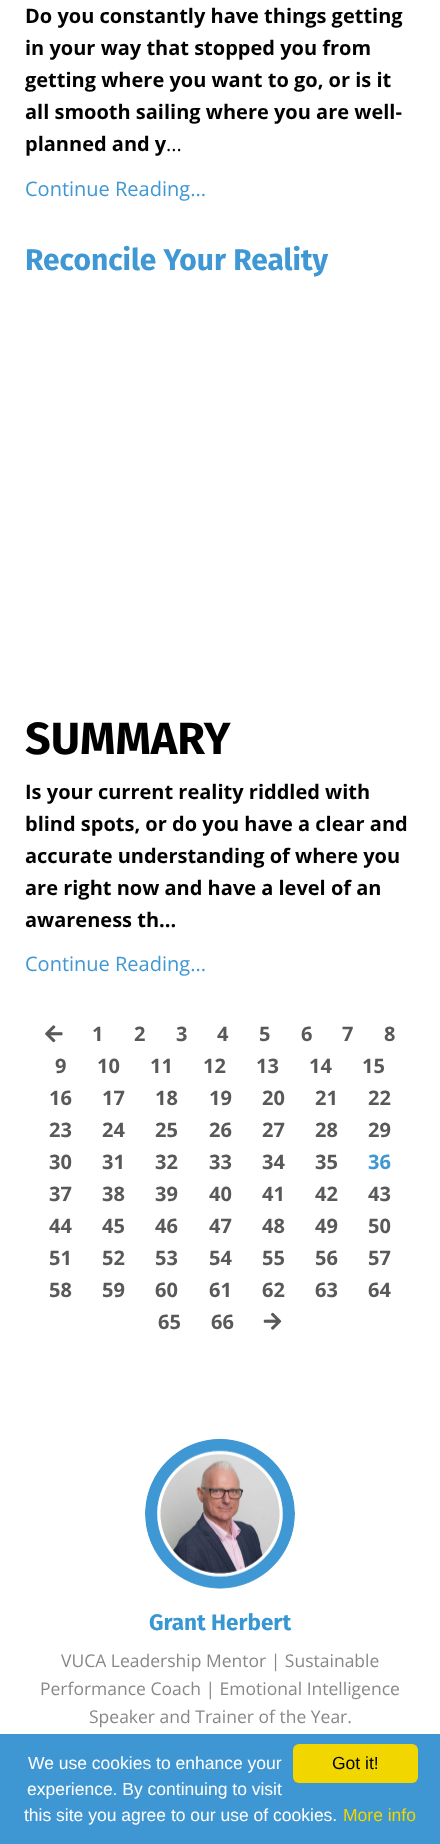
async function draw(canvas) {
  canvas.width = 440;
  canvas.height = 1844;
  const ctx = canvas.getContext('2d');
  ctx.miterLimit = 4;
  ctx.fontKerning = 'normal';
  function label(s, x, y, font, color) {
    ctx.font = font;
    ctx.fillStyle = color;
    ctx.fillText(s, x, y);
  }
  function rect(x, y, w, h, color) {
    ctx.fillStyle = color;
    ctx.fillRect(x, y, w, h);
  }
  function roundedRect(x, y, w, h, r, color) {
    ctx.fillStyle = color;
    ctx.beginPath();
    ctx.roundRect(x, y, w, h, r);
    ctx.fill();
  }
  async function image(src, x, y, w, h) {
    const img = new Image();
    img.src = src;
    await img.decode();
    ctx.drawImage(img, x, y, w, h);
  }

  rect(0, 0, 440, 1844, '#fff');
  label('Do you constantly have things getting', 25, 23, 'bold 20px Open Sans', '#000');
  label('in your way that stopped you from', 25, 55, 'bold 20px Open Sans', '#000');
  label('getting where you want to go, or is it', 25, 87, 'bold 20px Open Sans', '#000');
  label('all smooth sailing where you are well-', 25, 119, 'bold 20px Open Sans', '#000');
  label('planned and y', 25, 151, 'bold 20px Open Sans', '#000');
  label('...', 166, 151, '20px Open Sans', '#000');
  label('Continue Reading...', 25, 196, '20px Open Sans', '#3f97d3');
  label('Reconcile Your Reality', 25, 270, 'bold 30px Fira Sans', '#3f97d3');
  label('SUMMARY', 25, 754, 'bold 45px Fira Sans', '#000');
  label('Is your current reality riddled with', 25, 799, 'bold 20px Open Sans', '#000');
  label('blind spots, or do you have a clear and', 25, 831, 'bold 20px Open Sans', '#000');
  label('accurate understanding of where you', 25, 863, 'bold 20px Open Sans', '#000');
  label('are right now and have a level of an', 25, 895, 'bold 20px Open Sans', '#000');
  label('awareness th...', 25, 927, 'bold 20px Open Sans', '#000');
  label('Continue Reading...', 25, 971, '20px Open Sans', '#3f97d3');
  await image('assets/img1.png', 45, 1025, 18, 18);
  label('1', 92, 1041, 'bold 20px Open Sans', '#595959');
  label('2', 134, 1041, 'bold 20px Open Sans', '#595959');
  label('3', 176, 1041, 'bold 20px Open Sans', '#595959');
  label('4', 217, 1041, 'bold 20px Open Sans', '#595959');
  label('5', 259, 1041, 'bold 20px Open Sans', '#595959');
  label('6', 301, 1041, 'bold 20px Open Sans', '#595959');
  label('7', 342, 1041, 'bold 20px Open Sans', '#595959');
  label('8', 384, 1041, 'bold 20px Open Sans', '#595959');
  label('9', 55, 1073, 'bold 20px Open Sans', '#595959');
  label('10', 97, 1073, 'bold 20px Open Sans', '#595959');
  label('11', 150, 1073, 'bold 20px Open Sans', '#595959');
  label('12', 203, 1073, 'bold 20px Open Sans', '#595959');
  label('13', 256, 1073, 'bold 20px Open Sans', '#595959');
  label('14', 309, 1073, 'bold 20px Open Sans', '#595959');
  label('15', 362, 1073, 'bold 20px Open Sans', '#595959');
  label('16', 49, 1105, 'bold 20px Open Sans', '#595959');
  label('17', 102, 1105, 'bold 20px Open Sans', '#595959');
  label('18', 155, 1105, 'bold 20px Open Sans', '#595959');
  label('19', 209, 1105, 'bold 20px Open Sans', '#595959');
  label('20', 262, 1105, 'bold 20px Open Sans', '#595959');
  label('21', 315, 1105, 'bold 20px Open Sans', '#595959');
  label('22', 368, 1105, 'bold 20px Open Sans', '#595959');
  label('23', 49, 1137, 'bold 20px Open Sans', '#595959');
  label('24', 102, 1137, 'bold 20px Open Sans', '#595959');
  label('25', 155, 1137, 'bold 20px Open Sans', '#595959');
  label('26', 209, 1137, 'bold 20px Open Sans', '#595959');
  label('27', 262, 1137, 'bold 20px Open Sans', '#595959');
  label('28', 315, 1137, 'bold 20px Open Sans', '#595959');
  label('29', 368, 1137, 'bold 20px Open Sans', '#595959');
  label('30', 49, 1169, 'bold 20px Open Sans', '#595959');
  label('31', 102, 1169, 'bold 20px Open Sans', '#595959');
  label('32', 155, 1169, 'bold 20px Open Sans', '#595959');
  label('33', 209, 1169, 'bold 20px Open Sans', '#595959');
  label('34', 262, 1169, 'bold 20px Open Sans', '#595959');
  label('35', 315, 1169, 'bold 20px Open Sans', '#595959');
  label('36', 368, 1169, 'bold 20px Open Sans', '#3f97d3');
  label('37', 49, 1201, 'bold 20px Open Sans', '#595959');
  label('38', 102, 1201, 'bold 20px Open Sans', '#595959');
  label('39', 155, 1201, 'bold 20px Open Sans', '#595959');
  label('40', 209, 1201, 'bold 20px Open Sans', '#595959');
  label('41', 262, 1201, 'bold 20px Open Sans', '#595959');
  label('42', 315, 1201, 'bold 20px Open Sans', '#595959');
  label('43', 368, 1201, 'bold 20px Open Sans', '#595959');
  label('44', 49, 1233, 'bold 20px Open Sans', '#595959');
  label('45', 102, 1233, 'bold 20px Open Sans', '#595959');
  label('46', 155, 1233, 'bold 20px Open Sans', '#595959');
  label('47', 209, 1233, 'bold 20px Open Sans', '#595959');
  label('48', 262, 1233, 'bold 20px Open Sans', '#595959');
  label('49', 315, 1233, 'bold 20px Open Sans', '#595959');
  label('50', 368, 1233, 'bold 20px Open Sans', '#595959');
  label('51', 49, 1265, 'bold 20px Open Sans', '#595959');
  label('52', 102, 1265, 'bold 20px Open Sans', '#595959');
  label('53', 155, 1265, 'bold 20px Open Sans', '#595959');
  label('54', 209, 1265, 'bold 20px Open Sans', '#595959');
  label('55', 262, 1265, 'bold 20px Open Sans', '#595959');
  label('56', 315, 1265, 'bold 20px Open Sans', '#595959');
  label('57', 368, 1265, 'bold 20px Open Sans', '#595959');
  label('58', 49, 1297, 'bold 20px Open Sans', '#595959');
  label('59', 102, 1297, 'bold 20px Open Sans', '#595959');
  label('60', 155, 1297, 'bold 20px Open Sans', '#595959');
  label('61', 209, 1297, 'bold 20px Open Sans', '#595959');
  label('62', 262, 1297, 'bold 20px Open Sans', '#595959');
  label('63', 315, 1297, 'bold 20px Open Sans', '#595959');
  label('64', 368, 1297, 'bold 20px Open Sans', '#595959');
  label('65', 158, 1329, 'bold 20px Open Sans', '#595959');
  label('66', 211, 1329, 'bold 20px Open Sans', '#595959');
  await image('assets/img2.png', 263, 1312, 19, 18);
  await image('assets/img3.png', 145, 1438, 150, 151);
  label('Grant Herbert', 149, 1630, 'bold 22.5px Fira Sans', '#3897d3');
  label('VUCA Leadership Mentor | Sustainable', 61, 1667, '17.5px Open Sans', '#888');
  label('Performance Coach | Emotional Intelligence', 40, 1695, '17.5px Open Sans', '#888');
  label('Speaker and Trainer of the Year.', 89, 1723, '17.5px Open Sans', '#888');
  rect(0, 1734, 440, 110, '#3e96d2');
  label('We use cookies to enhance your', 28, 1769, '17.5px Liberation Sans', '#fff');
  label('experience. By continuing to visit', 27, 1795, '17.5px Liberation Sans', '#fff');
  label('this site you agree to our use of cookies.', 24, 1821, '17.5px Liberation Sans', '#fff');
  label('More info', 343, 1821, '17.5px Liberation Sans', '#f1d600');
  roundedRect(293, 1744, 125, 39, 6, '#f1d600');
  label('Got it!', 332, 1769, '17.5px Liberation Sans', '#000');
}

draw(document.querySelector('canvas'));
